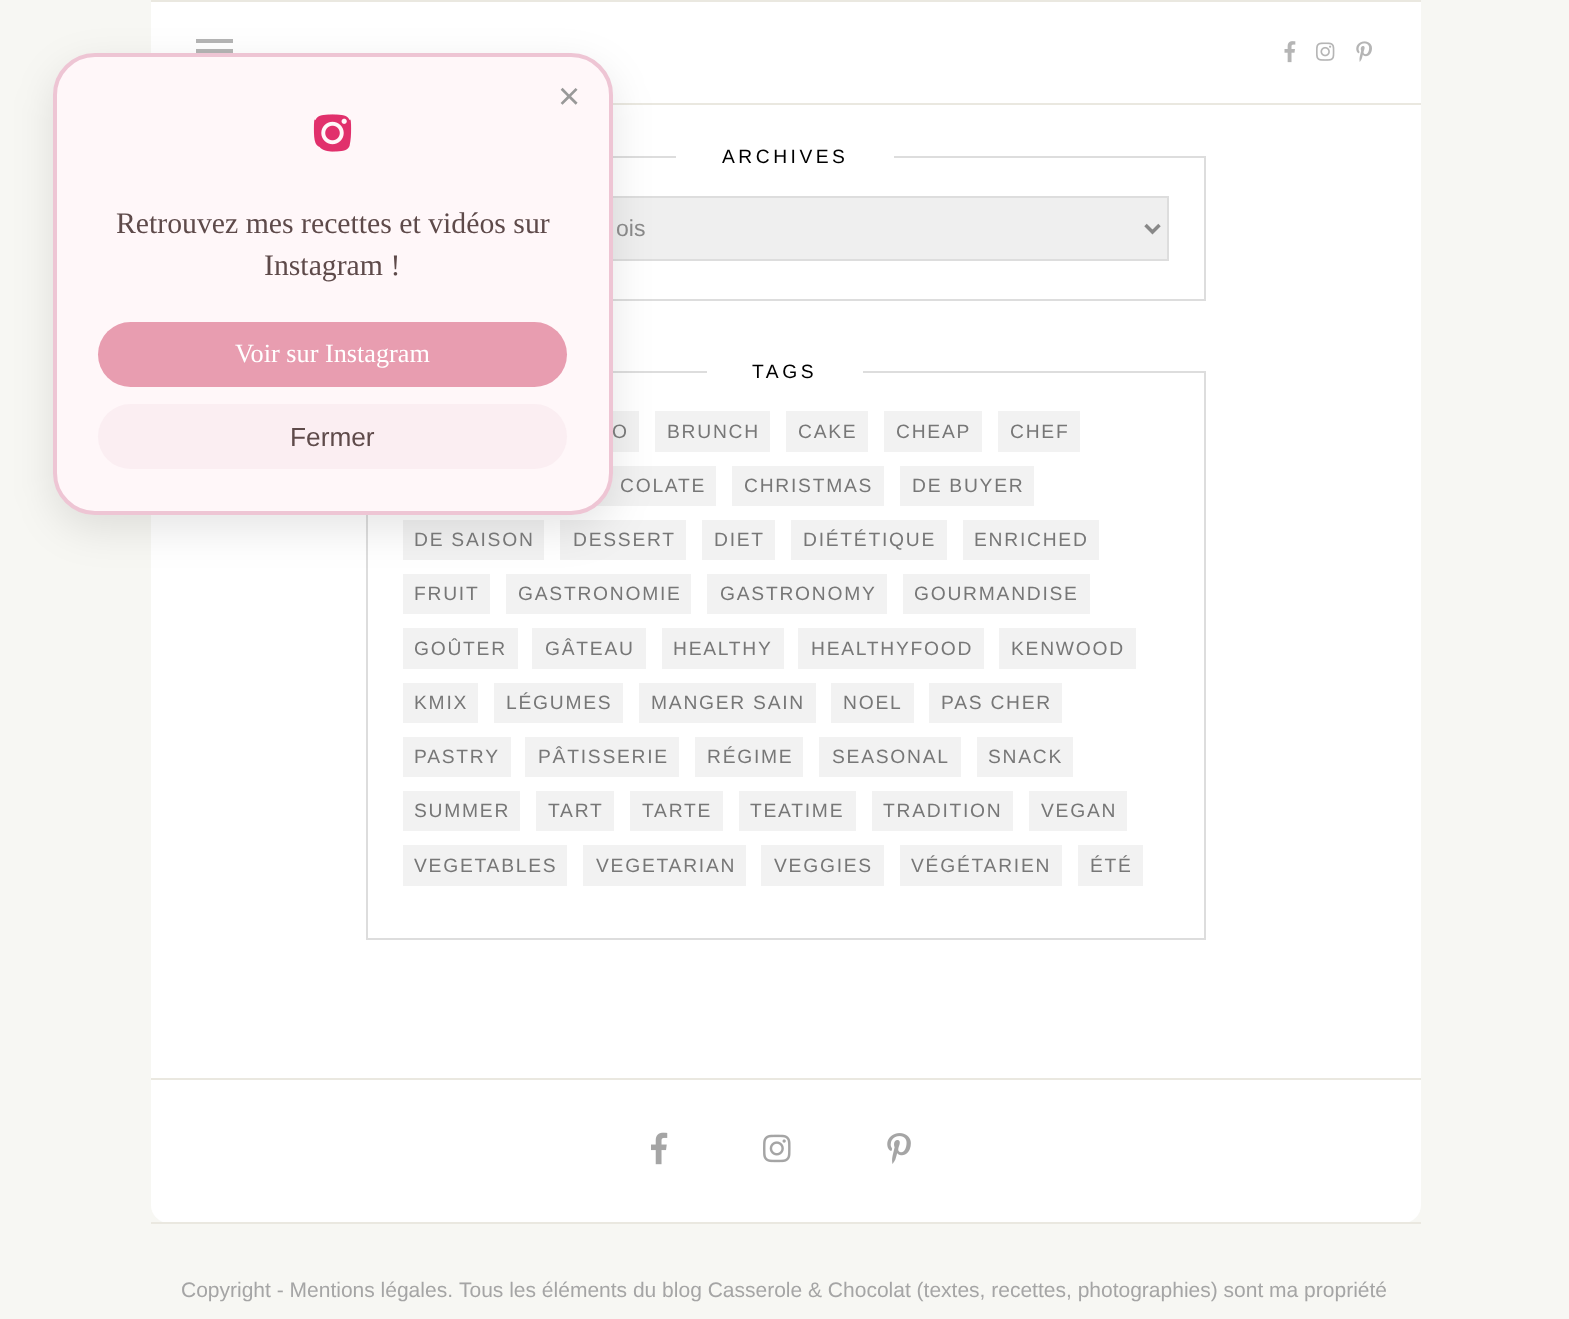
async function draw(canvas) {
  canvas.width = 1569;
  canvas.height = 1319;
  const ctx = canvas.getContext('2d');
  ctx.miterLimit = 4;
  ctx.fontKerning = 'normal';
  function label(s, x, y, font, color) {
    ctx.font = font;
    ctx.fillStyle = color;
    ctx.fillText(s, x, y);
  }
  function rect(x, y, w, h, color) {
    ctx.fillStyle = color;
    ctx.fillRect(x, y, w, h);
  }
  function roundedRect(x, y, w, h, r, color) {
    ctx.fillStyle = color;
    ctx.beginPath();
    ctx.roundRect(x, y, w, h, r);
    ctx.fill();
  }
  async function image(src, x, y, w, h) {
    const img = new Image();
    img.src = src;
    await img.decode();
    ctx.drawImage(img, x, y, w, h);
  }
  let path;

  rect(0, 0, 1569, 1319, '#f7f7f3');
  roundedRect(151, -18, 1270, 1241, 18, '#fff');
  rect(613, 103, 808, 2, '#eae8e0');
  rect(196, 39, 37, 4, '#b5b5b5');
  rect(196, 49, 37, 4, '#b5b5b5');
  ctx.strokeStyle = '#ddd';
  ctx.lineWidth = 2;
  ctx.strokeRect(367, 157, 838, 143);
  rect(613, 156, 556, 2, '#fff');
  rect(613, 156, 63, 2, '#ddd');
  rect(613, 198, 554, 61, '#efefef');
  ctx.strokeRect(404, 197, 764, 63);
  ctx.strokeRect(367, 372, 838, 567);
  rect(613, 371, 556, 2, '#fff');
  rect(613, 371, 94, 2, '#ddd');
  rect(613, 411, 26, 41, '#f2f2f2');
  rect(655, 411, 115, 41, '#f2f2f2');
  rect(597, 466, 119, 40, '#f2f2f2');
  rect(403, 520, 141, 40, '#f2f2f2');
  rect(560, 520, 126, 40, '#f2f2f2');
  rect(403, 574, 87, 40, '#f2f2f2');
  rect(506, 574, 185, 40, '#f2f2f2');
  ctx.fillStyle = '#0000001a';
  ctx.filter = 'blur(21px)';
  ctx.beginPath();
  ctx.roundRect(53, 67, 560, 462, 42);
  ctx.fill();
  ctx.filter = 'none';
  ctx.fillStyle = '#fff7f9';
  ctx.beginPath();
  ctx.roundRect(55, 55, 556, 458, 40);
  ctx.fill();
  ctx.strokeStyle = '#eec5d4';
  ctx.lineWidth = 4;
  ctx.stroke();
  label('×', 558, 109, '38px Liberation Sans', '#999');
  await image('assets/img1.png', 313, 114, 39, 38);
  label('Retrouvez mes recettes et vidéos sur', 116, 233, '29.75px Liberation Serif', '#5e4a4a');
  label('Instagram !', 264, 275, '29.75px Liberation Serif', '#5e4a4a');
  roundedRect(98, 322, 469, 65, 32.5, '#e89db0');
  label('Voir sur Instagram', 235, 362, '26.25px Liberation Serif', '#fff');
  roundedRect(98, 404, 469, 65, 32.5, '#fbeef2');
  label('Fermer', 290, 446, '26.25px Liberation Sans', '#5e4a4a');
  rect(151, 0, 1270, 2, '#eae8e0');
  await image('assets/img2.png', 1284, 41, 12, 22);
  await image('assets/img3.png', 1316, 42, 19, 19);
  await image('assets/img4.png', 1356, 41, 16, 21);
  ctx.letterSpacing = '3.5px';
  label('ARCHIVES', 722, 163, '19.25px Liberation Sans', '#000');
  rect(894, 156, 275, 2, '#ddd');
  path = new Path2D('M1145.5 225L1152.5 232L1159.5 225');
  ctx.strokeStyle = '#888';
  ctx.lineWidth = 3.5;
  ctx.stroke(path);
  ctx.letterSpacing = '0px';
  label('ois', 616, 236, '23px Liberation Sans', '#888');
  ctx.letterSpacing = '3.5px';
  label('TAGS', 752, 378, '19.25px Liberation Sans', '#000');
  rect(863, 371, 306, 2, '#ddd');
  ctx.letterSpacing = '1.75px';
  label('O', 612, 438, '19.25px Liberation Sans', '#777');
  label('BRUNCH', 667, 438, '19.25px Liberation Sans', '#777');
  rect(786, 411, 82, 41, '#f2f2f2');
  label('CAKE', 798, 438, '19.25px Liberation Sans', '#777');
  rect(884, 411, 98, 41, '#f2f2f2');
  label('CHEAP', 896, 438, '19.25px Liberation Sans', '#777');
  rect(998, 411, 82, 41, '#f2f2f2');
  label('CHEF', 1010, 438, '19.25px Liberation Sans', '#777');
  label('COLATE', 620, 492, '19.25px Liberation Sans', '#777');
  rect(732, 466, 152, 40, '#f2f2f2');
  label('CHRISTMAS', 744, 492, '19.25px Liberation Sans', '#777');
  rect(900, 466, 134, 40, '#f2f2f2');
  label('DE BUYER', 912, 492, '19.25px Liberation Sans', '#777');
  label('DE SAISON', 414, 546, '19.25px Liberation Sans', '#777');
  label('DESSERT', 573, 546, '19.25px Liberation Sans', '#777');
  rect(702, 520, 73, 40, '#f2f2f2');
  label('DIET', 714, 546, '19.25px Liberation Sans', '#777');
  rect(791, 520, 156, 40, '#f2f2f2');
  label('DIÉTÉTIQUE', 803, 546, '19.25px Liberation Sans', '#777');
  rect(963, 520, 136, 40, '#f2f2f2');
  label('ENRICHED', 974, 546, '19.25px Liberation Sans', '#777');
  label('FRUIT', 414, 600, '19.25px Liberation Sans', '#777');
  label('GASTRONOMIE', 518, 600, '19.25px Liberation Sans', '#777');
  rect(707, 574, 180, 40, '#f2f2f2');
  label('GASTRONOMY', 720, 600, '19.25px Liberation Sans', '#777');
  rect(903, 574, 187, 40, '#f2f2f2');
  label('GOURMANDISE', 914, 600, '19.25px Liberation Sans', '#777');
  rect(403, 628, 115, 41, '#f2f2f2');
  label('GOÛTER', 414, 655, '19.25px Liberation Sans', '#777');
  rect(532, 628, 114, 41, '#f2f2f2');
  label('GÂTEAU', 545, 655, '19.25px Liberation Sans', '#777');
  rect(662, 628, 122, 41, '#f2f2f2');
  label('HEALTHY', 673, 655, '19.25px Liberation Sans', '#777');
  rect(798, 628, 186, 41, '#f2f2f2');
  label('HEALTHYFOOD', 811, 655, '19.25px Liberation Sans', '#777');
  rect(999, 628, 137, 41, '#f2f2f2');
  label('KENWOOD', 1011, 655, '19.25px Liberation Sans', '#777');
  rect(403, 683, 75, 40, '#f2f2f2');
  label('KMIX', 414, 709, '19.25px Liberation Sans', '#777');
  rect(494, 683, 129, 40, '#f2f2f2');
  label('LÉGUMES', 506, 709, '19.25px Liberation Sans', '#777');
  rect(639, 683, 177, 40, '#f2f2f2');
  label('MANGER SAIN', 651, 709, '19.25px Liberation Sans', '#777');
  rect(831, 683, 83, 40, '#f2f2f2');
  label('NOEL', 843, 709, '19.25px Liberation Sans', '#777');
  rect(929, 683, 133, 40, '#f2f2f2');
  label('PAS CHER', 941, 709, '19.25px Liberation Sans', '#777');
  rect(403, 737, 108, 40, '#f2f2f2');
  label('PASTRY', 414, 763, '19.25px Liberation Sans', '#777');
  rect(525, 737, 154, 40, '#f2f2f2');
  label('PÂTISSERIE', 538, 763, '19.25px Liberation Sans', '#777');
  rect(695, 737, 108, 40, '#f2f2f2');
  label('RÉGIME', 707, 763, '19.25px Liberation Sans', '#777');
  rect(819, 737, 142, 40, '#f2f2f2');
  label('SEASONAL', 832, 763, '19.25px Liberation Sans', '#777');
  rect(977, 737, 96, 40, '#f2f2f2');
  label('SNACK', 988, 763, '19.25px Liberation Sans', '#777');
  rect(403, 791, 117, 40, '#f2f2f2');
  label('SUMMER', 414, 817, '19.25px Liberation Sans', '#777');
  rect(536, 791, 78, 40, '#f2f2f2');
  label('TART', 548, 817, '19.25px Liberation Sans', '#777');
  rect(630, 791, 93, 40, '#f2f2f2');
  label('TARTE', 642, 817, '19.25px Liberation Sans', '#777');
  rect(739, 791, 117, 40, '#f2f2f2');
  label('TEATIME', 750, 817, '19.25px Liberation Sans', '#777');
  rect(872, 791, 141, 40, '#f2f2f2');
  label('TRADITION', 883, 817, '19.25px Liberation Sans', '#777');
  rect(1029, 791, 98, 40, '#f2f2f2');
  label('VEGAN', 1041, 817, '19.25px Liberation Sans', '#777');
  rect(403, 845, 164, 41, '#f2f2f2');
  label('VEGETABLES', 414, 872, '19.25px Liberation Sans', '#777');
  rect(583, 845, 163, 41, '#f2f2f2');
  label('VEGETARIAN', 596, 872, '19.25px Liberation Sans', '#777');
  rect(761, 845, 123, 41, '#f2f2f2');
  label('VEGGIES', 774, 872, '19.25px Liberation Sans', '#777');
  rect(900, 845, 162, 41, '#f2f2f2');
  label('VÉGÉTARIEN', 911, 872, '19.25px Liberation Sans', '#777');
  rect(1078, 845, 65, 41, '#f2f2f2');
  label('ÉTÉ', 1090, 872, '19.25px Liberation Sans', '#777');
  rect(151, 1078, 1270, 2, '#eae8e0');
  rect(151, 1222, 1270, 2, '#eae8e0');
  await image('assets/img5.png', 651, 1132, 17, 33);
  await image('assets/img6.png', 763, 1134, 28, 29);
  await image('assets/img7.png', 887, 1133, 24, 31);
  ctx.letterSpacing = '0px';
  label('Copyright - Mentions légales.', 181, 1297, '21px Liberation Sans', '#a5a5a5');
  label('Tous les éléments du blog Casserole & Chocolat (textes, recettes, photographies) sont ma propriété', 459, 1297, '21px Liberation Sans', '#a5a5a5');
}

draw(document.querySelector('canvas'));
